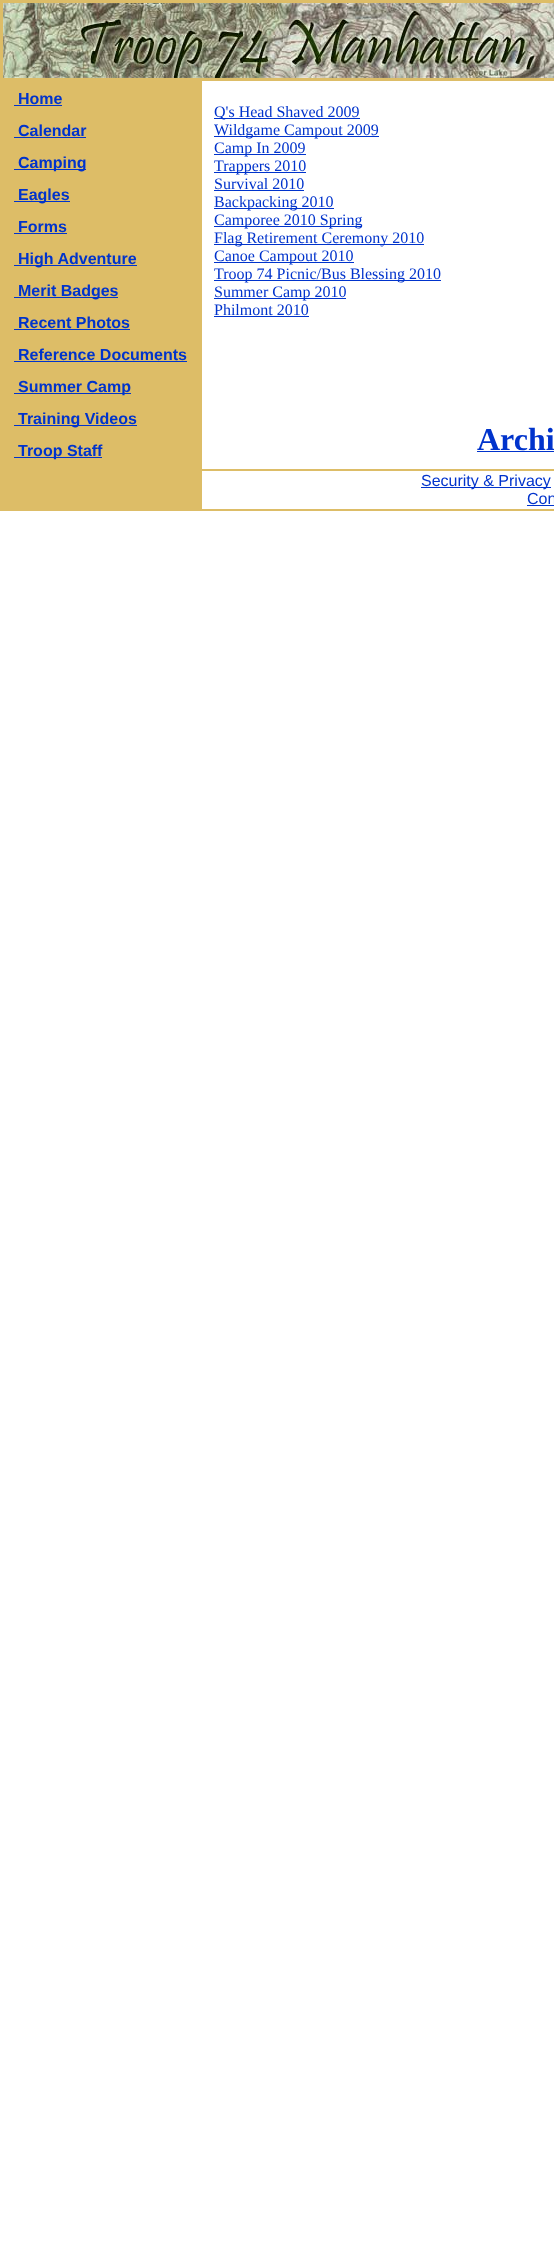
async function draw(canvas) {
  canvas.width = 554;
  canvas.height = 2262;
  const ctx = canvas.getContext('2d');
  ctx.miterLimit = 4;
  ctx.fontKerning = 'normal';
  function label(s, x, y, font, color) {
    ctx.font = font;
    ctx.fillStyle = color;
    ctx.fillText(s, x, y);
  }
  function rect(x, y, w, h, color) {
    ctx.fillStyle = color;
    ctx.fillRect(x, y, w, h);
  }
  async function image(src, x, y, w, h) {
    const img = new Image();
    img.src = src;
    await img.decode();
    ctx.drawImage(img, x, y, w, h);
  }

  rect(0, 0, 554, 2262, '#fff');
  rect(0, 0, 554, 511, '#ddbd67');
  await image('assets/img1.png', 3, 3, 551, 75);
  label('Home', 18, 104, 'bold 16px Liberation Sans', '#03c');
  rect(14, 105, 48, 1, '#03c');
  label('Calendar', 18, 136, 'bold 16px Liberation Sans', '#03c');
  rect(14, 137, 72, 1, '#03c');
  rect(14, 169, 72, 1, '#03c');
  label('Camping', 18, 168, 'bold 16px Liberation Sans', '#03c');
  rect(14, 201, 56, 1, '#03c');
  label('Eagles', 18, 200, 'bold 16px Liberation Sans', '#03c');
  label('Forms', 18, 232, 'bold 16px Liberation Sans', '#03c');
  rect(14, 233, 53, 1, '#03c');
  rect(14, 265, 123, 1, '#03c');
  label('High Adventure', 18, 264, 'bold 16px Liberation Sans', '#03c');
  rect(14, 297, 104, 1, '#03c');
  label('Merit Badges', 18, 296, 'bold 16px Liberation Sans', '#03c');
  label('Recent Photos', 18, 328, 'bold 16px Liberation Sans', '#03c');
  rect(14, 329, 116, 1, '#03c');
  label('Reference Documents', 18, 360, 'bold 16px Liberation Sans', '#03c');
  rect(14, 361, 173, 1, '#03c');
  rect(14, 393, 117, 1, '#03c');
  label('Summer Camp', 18, 392, 'bold 16px Liberation Sans', '#03c');
  rect(14, 425, 123, 1, '#03c');
  label('Training Videos', 18, 424, 'bold 16px Liberation Sans', '#03c');
  rect(14, 457, 88, 1, '#03c');
  label('Troop Staff', 18, 456, 'bold 16px Liberation Sans', '#03c');
  rect(202, 81, 352, 388, '#fff');
  rect(214, 118, 146, 1, '#03c');
  label('Q\'s Head Shaved 2009', 214, 117, '16px Liberation Serif', '#03c');
  rect(214, 136, 165, 1, '#03c');
  label('Wildgame Campout 2009', 214, 135, '16px Liberation Serif', '#03c');
  rect(214, 154, 92, 1, '#03c');
  label('Camp In 2009', 214, 153, '16px Liberation Serif', '#03c');
  rect(214, 172, 92, 1, '#03c');
  label('Trappers 2010', 214, 171, '16px Liberation Serif', '#03c');
  label('Survival 2010', 214, 189, '16px Liberation Serif', '#03c');
  rect(214, 190, 90, 1, '#03c');
  rect(214, 208, 120, 1, '#03c');
  label('Backpacking 2010', 214, 207, '16px Liberation Serif', '#03c');
  rect(214, 226, 148, 1, '#03c');
  label('Camporee 2010 Spring', 214, 225, '16px Liberation Serif', '#03c');
  rect(214, 244, 210, 1, '#03c');
  label('Flag Retirement Ceremony 2010', 214, 243, '16px Liberation Serif', '#03c');
  rect(214, 262, 140, 1, '#03c');
  label('Canoe Campout 2010', 214, 261, '16px Liberation Serif', '#03c');
  rect(214, 280, 227, 1, '#03c');
  label('Troop 74 Picnic/Bus Blessing 2010', 214, 279, '16px Liberation Serif', '#03c');
  rect(214, 298, 132, 1, '#03c');
  label('Summer Camp 2010', 214, 297, '16px Liberation Serif', '#03c');
  label('Philmont 2010', 214, 315, '16px Liberation Serif', '#03c');
  rect(214, 316, 95, 1, '#03c');
  label('Archi', 477, 450, 'bold 32px Liberation Serif', '#03c');
  rect(477, 451, 77, 1, '#03c');
  rect(202, 471, 352, 38, '#fff');
  rect(421, 487, 130, 1, '#03c');
  label('Security & Privacy', 421, 486, '16px Liberation Sans', '#03c');
  label('Con', 527, 504, '16px Liberation Sans', '#03c');
  rect(527, 505, 27, 1, '#03c');
}

draw(document.querySelector('canvas'));
